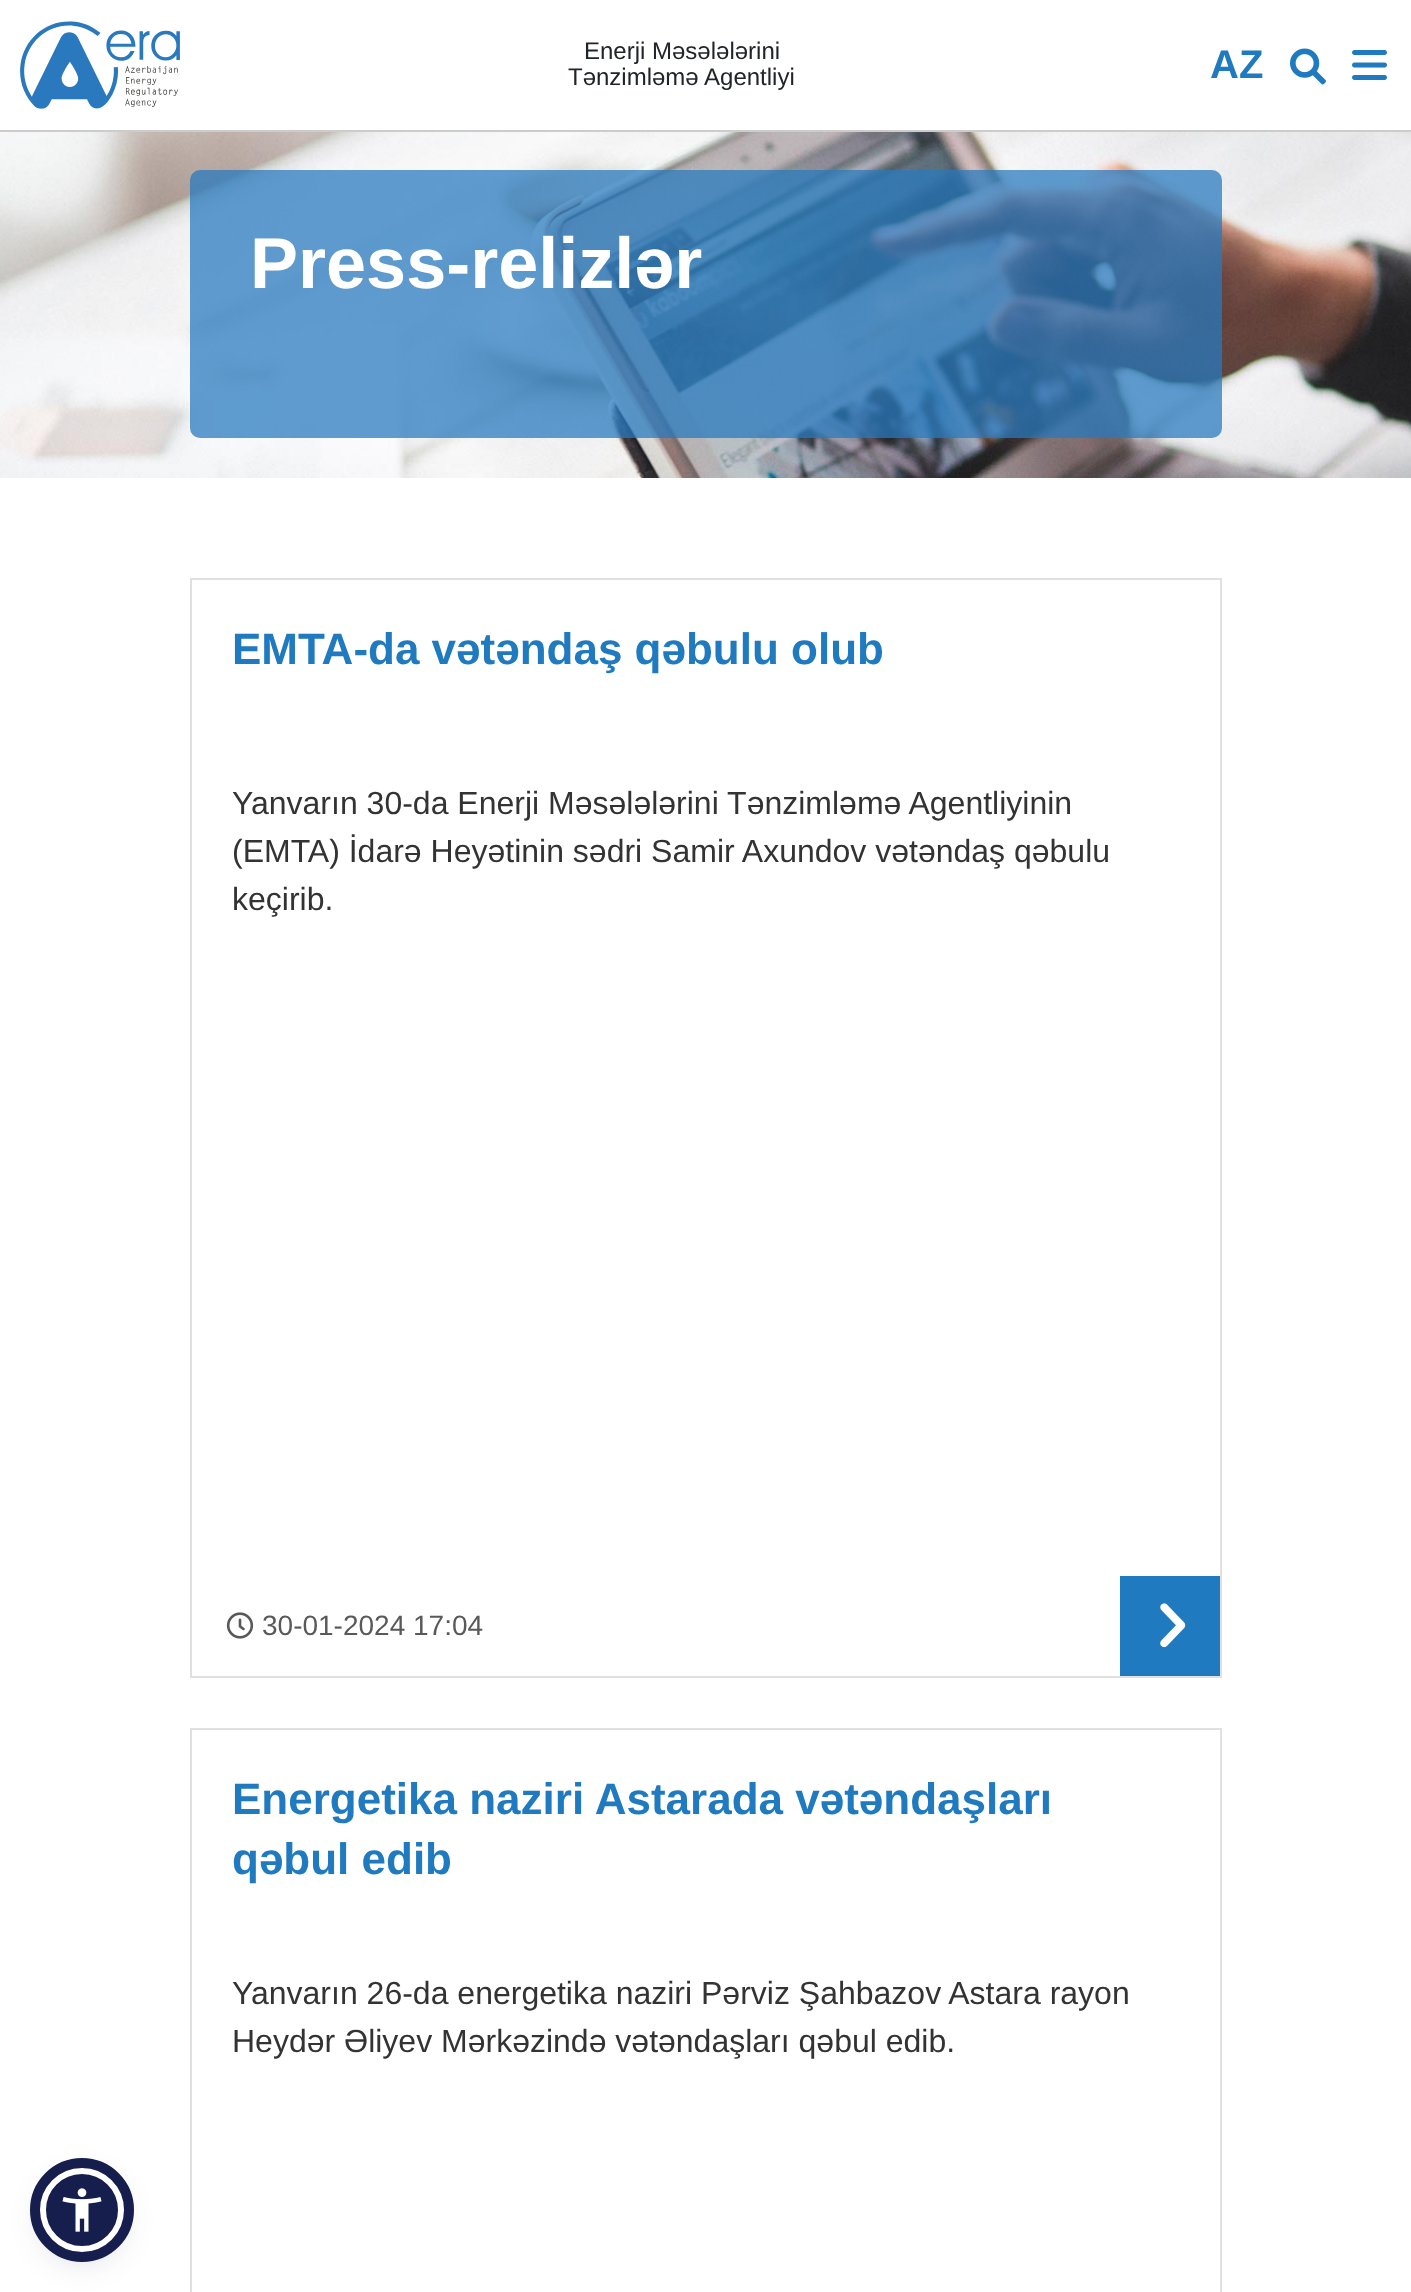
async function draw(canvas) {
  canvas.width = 1411;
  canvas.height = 2292;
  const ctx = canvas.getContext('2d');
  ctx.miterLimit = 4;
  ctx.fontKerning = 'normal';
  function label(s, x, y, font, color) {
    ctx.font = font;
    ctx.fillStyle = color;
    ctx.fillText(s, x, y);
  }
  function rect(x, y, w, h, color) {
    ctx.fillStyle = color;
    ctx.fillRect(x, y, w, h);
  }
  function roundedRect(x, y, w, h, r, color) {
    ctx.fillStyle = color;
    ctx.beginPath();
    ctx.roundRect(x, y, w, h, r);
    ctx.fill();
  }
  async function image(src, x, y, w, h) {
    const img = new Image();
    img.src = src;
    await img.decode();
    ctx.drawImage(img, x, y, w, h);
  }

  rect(0, 0, 1411, 2292, '#fff');
  rect(0, 130, 1411, 2, '#ccc');
  await image('assets/img1.png', 20, 21, 160, 88);
  label('Enerji Məsələlərini', 584, 59, '24px Arimo', '#212529');
  label('Tənzimləmə Agentliyi', 568, 85, '24px Arimo', '#212529');
  label('AZ', 1210, 78, 'bold 40px Arimo', '#207abf');
  await image('assets/img2.png', 1290, 48, 36, 37);
  await image('assets/img3.png', 1352, 50, 35, 30);
  await image('assets/img4.png', 0, 132, 1411, 346);
  roundedRect(190, 170, 1032, 268, 10, '#2979bebd');
  label('Press-relizlər', 250, 288, 'bold 72px Arimo', '#fff');
  ctx.strokeStyle = '#e0e0e0';
  ctx.lineWidth = 2;
  ctx.strokeRect(191, 579, 1030, 1098);
  label('EMTA-da vətəndaş qəbulu olub', 232, 664, 'bold 44px Arimo', '#207abf');
  label('Yanvarın 30-da Enerji Məsələlərini Tənzimləmə Agentliyinin', 232, 814, '32px Arimo', '#333');
  label('(EMTA) İdarə Heyətinin sədri Samir Axundov vətəndaş qəbulu', 232, 862, '32px Arimo', '#333');
  label('keçirib.', 232, 910, '32px Arimo', '#333');
  await image('assets/img5.png', 226, 1612, 28, 27);
  label('30-01-2024 17:04', 262, 1635, '28px Arimo', '#5a5959');
  rect(1120, 1576, 100, 100, '#207abf');
  await image('assets/img6.png', 1160, 1603, 26, 45);
  ctx.strokeRect(191, 1729, 1030, 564);
  label('Energetika naziri Astarada vətəndaşları', 232, 1814, 'bold 44px Arimo', '#207abf');
  label('qəbul edib', 232, 1874, 'bold 44px Arimo', '#207abf');
  label('Yanvarın 26-da energetika naziri Pərviz Şahbazov Astara rayon', 232, 2004, '32px Arimo', '#333');
  label('Heydər Əliyev Mərkəzində vətəndaşları qəbul edib.', 232, 2052, '32px Arimo', '#333');
  ctx.fillStyle = '#5d649433';
  ctx.filter = 'blur(4px)';
  ctx.beginPath();
  ctx.roundRect(40, 2172, 84, 84, 42);
  ctx.fill();
  ctx.filter = 'none';
  ctx.fillStyle = '#252c6126';
  ctx.filter = 'blur(15px)';
  ctx.beginPath();
  ctx.roundRect(40, 2178, 84, 84, 42);
  ctx.fill();
  ctx.filter = 'none';
  ctx.fillStyle = '#161e4d';
  ctx.beginPath();
  ctx.arc(82, 2210, 39, 0, 2 * Math.PI);
  ctx.fill();
  ctx.strokeStyle = '#fff';
  ctx.lineWidth = 6;
  ctx.stroke();
  ctx.beginPath();
  ctx.arc(82, 2210, 47, 0, 2 * Math.PI);
  ctx.strokeStyle = '#161e4d';
  ctx.lineWidth = 10;
  ctx.stroke();
  await image('assets/img7.png', 62, 2188, 40, 44);
}

draw(document.querySelector('canvas'));
